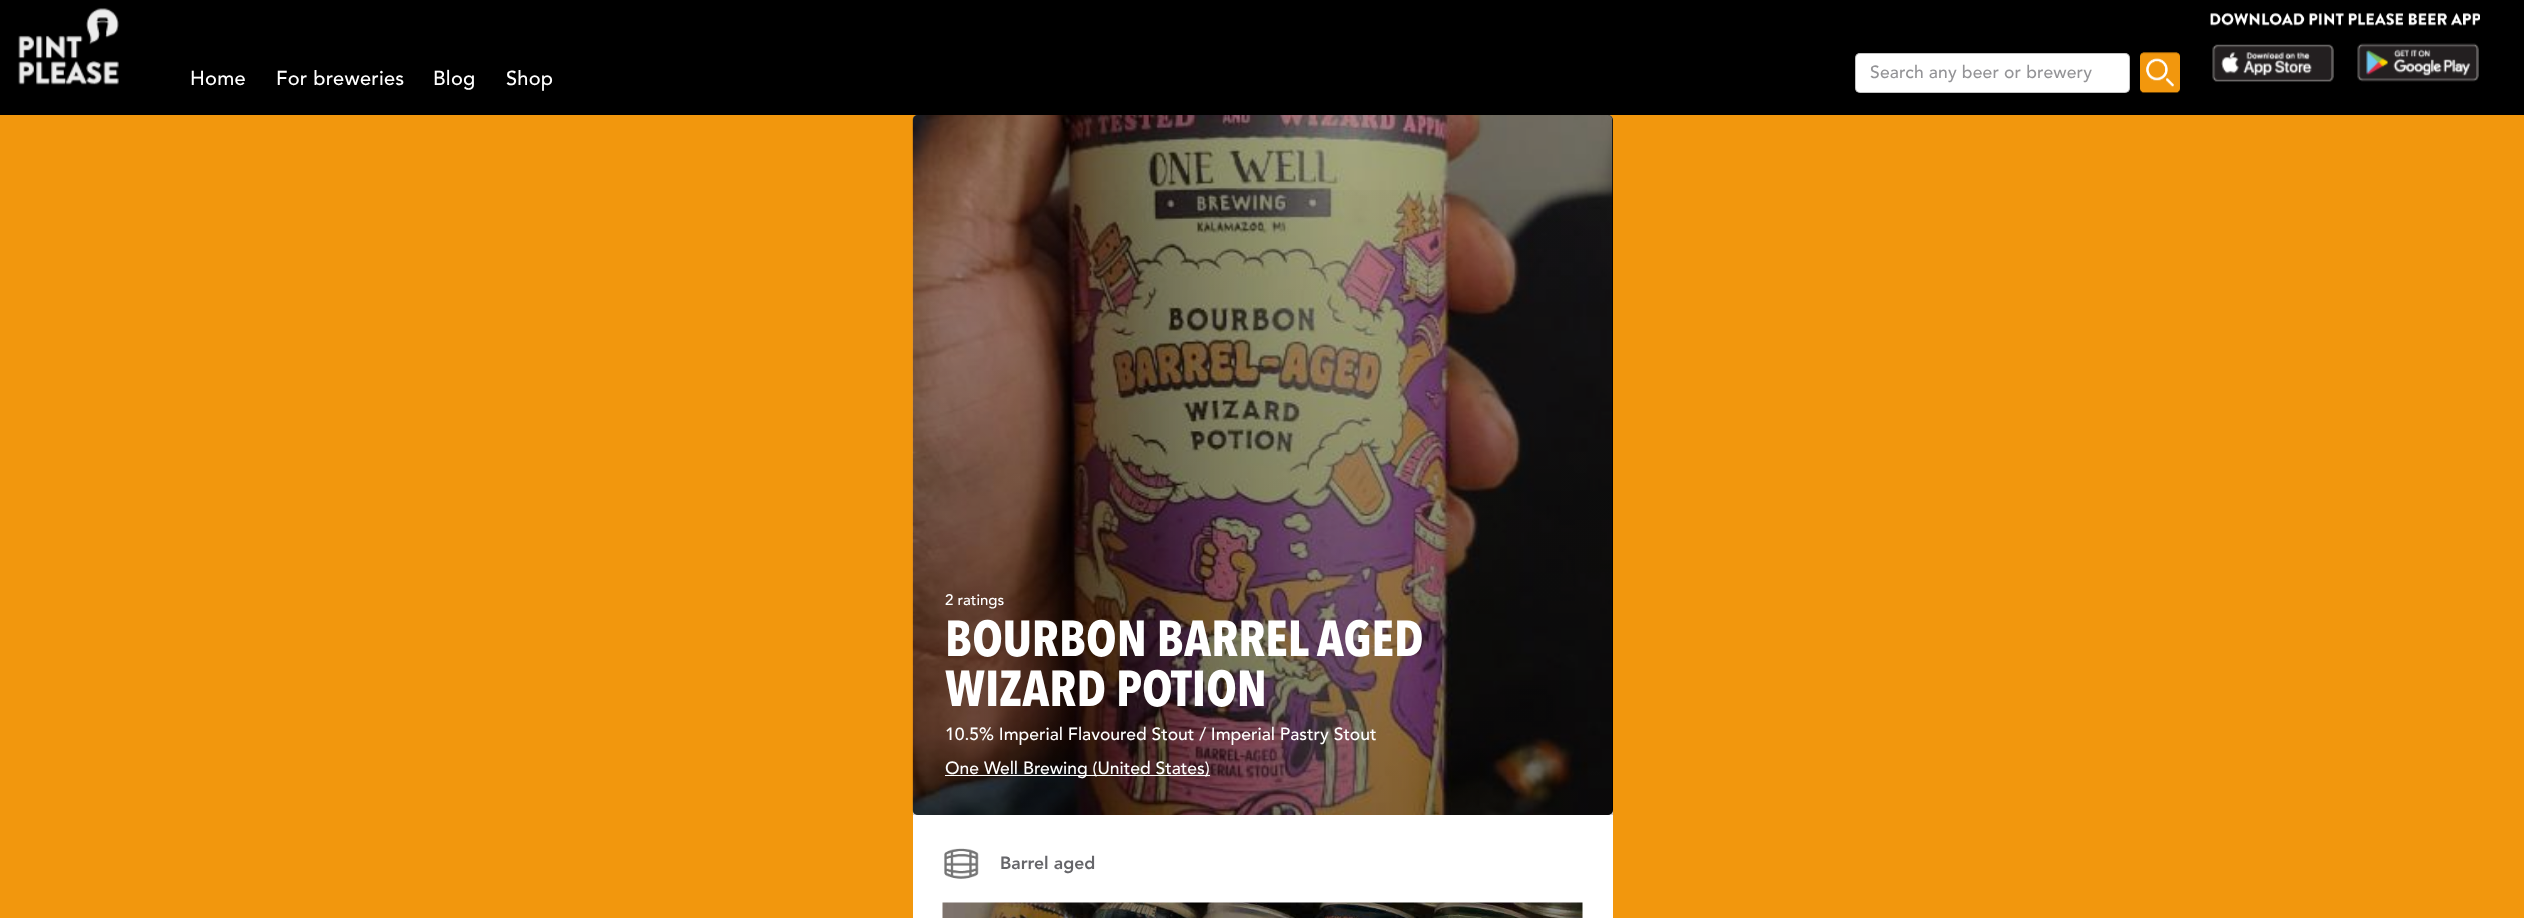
async function draw(canvas) {
  canvas.width = 2524;
  canvas.height = 918;
  const ctx = canvas.getContext('2d');
  ctx.miterLimit = 4;
  ctx.fontKerning = 'normal';
  function label(s, x, y, font, color) {
    ctx.font = font;
    ctx.fillStyle = color;
    ctx.fillText(s, x, y);
  }
  function rect(x, y, w, h, color) {
    ctx.fillStyle = color;
    ctx.fillRect(x, y, w, h);
  }
  function roundedRect(x, y, w, h, r, color) {
    ctx.fillStyle = color;
    ctx.beginPath();
    ctx.roundRect(x, y, w, h, r);
    ctx.fill();
  }
  async function image(src, x, y, w, h) {
    const img = new Image();
    img.src = src;
    await img.decode();
    ctx.drawImage(img, x, y, w, h);
  }
  let gradient;

  rect(0, 0, 2524, 918, '#f2970d');
  rect(0, 0, 2524, 115, '#000');
  await image('assets/img1.png', 18, 8, 101, 77);
  ctx.letterSpacing = '0.25px';
  label('Home', 190, 85, '500 20px Avenir', '#fff');
  label('For breweries', 276, 85, '500 20px Avenir', '#fff');
  label('Blog', 433, 85, '500 20px Avenir', '#fff');
  label('Shop', 506, 85, '500 20px Avenir', '#fff');
  roundedRect(1855, 53, 275, 40, 5, '#fff');
  ctx.beginPath();
  ctx.roundRect(1855.5, 53.5, 274, 39, 4.5);
  ctx.strokeStyle = '#0000003d';
  ctx.stroke();
  ctx.letterSpacing = '0.15px';
  label('Search any beer or brewery', 1870, 78, '500 17.5px Avenir', '#949497');
  await image('assets/img2.png', 2140, 52, 40, 41);
  await image('assets/img3.png', 2210, 12, 270, 14);
  await image('assets/img4.png', 2212, 44, 122, 38);
  await image('assets/img5.png', 2357, 43, 122, 39);
  roundedRect(913, 115, 700, 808, 5, '#fff');
  roundedRect(913, 115, 700, 700, 5, '#000');
  await image('assets/img6.png', 912, 115, 701, 700);
  gradient = ctx.createLinearGradient(1263, 115, 1263, 815);
  gradient.addColorStop(0, '#00000000');
  gradient.addColorStop(1, '#00000033');
  ctx.fillStyle = gradient;
  ctx.fillRect(913, 190, 700, 625);
  ctx.letterSpacing = '0px';
  label('2 ratings', 945, 605, '500 15px Avenir', '#fff');
  label('BOURBON BARREL AGED', 945, 656, 'bold 50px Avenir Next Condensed', '#fff');
  label('WIZARD POTION', 945, 706, 'bold 50px Avenir Next Condensed', '#fff');
  label('10.5% Imperial Flavoured Stout / Imperial Pastry Stout', 945, 740, '500 17.5px Avenir', '#fff');
  rect(945, 775, 265, 1, '#fff');
  label('One Well Brewing (United States)', 945, 774, '500 17.5px Avenir', '#fff');
  await image('assets/img7.png', 944, 848, 35, 31);
  label('Barrel aged', 1000, 869, '900 17.5px Avenir', '#66666a');
  await image('assets/img8.png', 942, 902, 641, 16);
}

draw(document.querySelector('canvas'));
